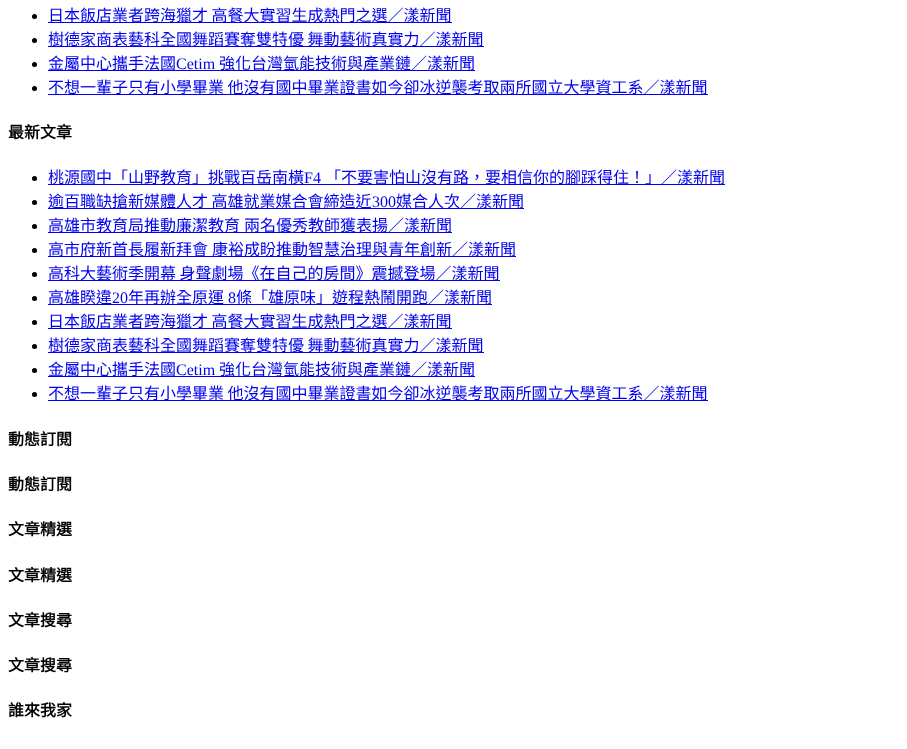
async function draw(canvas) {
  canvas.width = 907;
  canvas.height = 749;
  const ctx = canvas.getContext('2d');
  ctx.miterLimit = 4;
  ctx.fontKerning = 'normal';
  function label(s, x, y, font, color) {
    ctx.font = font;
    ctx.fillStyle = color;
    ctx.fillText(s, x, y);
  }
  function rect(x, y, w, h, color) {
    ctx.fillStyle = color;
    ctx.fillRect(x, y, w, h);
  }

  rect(0, 0, 907, 749, '#fff');
  ctx.fillStyle = '#000';
  ctx.beginPath();
  ctx.arc(34.5, 16.5, 2.5, 0, 2 * Math.PI);
  ctx.fill();
  rect(48, 22, 404, 1, '#00e');
  label('日本飯店業者跨海獵才 高餐大實習生成熱門之選／漾新聞', 48, 21, '16px Noto Sans CJK TC', '#00e');
  ctx.fillStyle = '#000';
  ctx.beginPath();
  ctx.arc(34.5, 40.5, 2.5, 0, 2 * Math.PI);
  ctx.fill();
  rect(48, 46, 436, 1, '#00e');
  label('樹德家商表藝科全國舞蹈賽奪雙特優 舞動藝術真實力／漾新聞', 48, 45, '16px Noto Sans CJK TC', '#00e');
  ctx.fillStyle = '#000';
  ctx.beginPath();
  ctx.arc(34.5, 64.5, 2.5, 0, 2 * Math.PI);
  ctx.fill();
  rect(48, 70, 427, 1, '#00e');
  label('金屬中心攜手法國', 48, 69, '16px Noto Sans CJK TC', '#00e');
  label('Cetim', 176, 69, '16px Liberation Serif', '#00e');
  label('強化台灣氫能技術與產業鏈／漾新聞', 219, 69, '16px Noto Sans CJK TC', '#00e');
  ctx.fillStyle = '#000';
  ctx.beginPath();
  ctx.arc(34.5, 88.5, 2.5, 0, 2 * Math.PI);
  ctx.fill();
  rect(48, 94, 660, 1, '#00e');
  label('不想一輩子只有小學畢業 他沒有國中畢業證書如今卻冰逆襲考取兩所國立大學資工系／漾新聞', 48, 93, '16px Noto Sans CJK TC', '#00e');
  label('最新文章', 8, 138, 'bold 16px Noto Sans CJK TC', '#000');
  ctx.beginPath();
  ctx.arc(34.5, 178.5, 2.5, 0, 2 * Math.PI);
  ctx.fill();
  rect(48, 184, 677, 1, '#00e');
  label('桃源國中「山野教育」挑戰百岳南橫', 48, 183, '16px Noto Sans CJK TC', '#00e');
  label('F4', 304, 183, '16px Liberation Serif', '#00e');
  label('「不要害怕山沒有路，要相信你的腳踩得住！」／漾新聞', 325, 183, '16px Noto Sans CJK TC', '#00e');
  ctx.fillStyle = '#000';
  ctx.beginPath();
  ctx.arc(34.5, 202.5, 2.5, 0, 2 * Math.PI);
  ctx.fill();
  rect(48, 208, 476, 1, '#00e');
  label('逾百職缺搶新媒體人才 高雄就業媒合會締造近', 48, 207, '16px Noto Sans CJK TC', '#00e');
  label('300', 372, 207, '16px Liberation Serif', '#00e');
  label('媒合人次／漾新聞', 396, 207, '16px Noto Sans CJK TC', '#00e');
  ctx.fillStyle = '#000';
  ctx.beginPath();
  ctx.arc(34.5, 226.5, 2.5, 0, 2 * Math.PI);
  ctx.fill();
  rect(48, 232, 404, 1, '#00e');
  label('高雄市教育局推動廉潔教育', 48, 231, '16px Noto Sans CJK TC', '#00e');
  label('兩名優秀教師獲表揚／漾新聞', 244, 231, '16px Noto Sans CJK TC', '#00e');
  ctx.fillStyle = '#000';
  ctx.beginPath();
  ctx.arc(34.5, 250.5, 2.5, 0, 2 * Math.PI);
  ctx.fill();
  rect(48, 256, 468, 1, '#00e');
  label('高市府新首長履新拜會', 48, 255, '16px Noto Sans CJK TC', '#00e');
  label('康裕成盼推動智慧治理與青年創新／漾新聞', 212, 255, '16px Noto Sans CJK TC', '#00e');
  ctx.fillStyle = '#000';
  ctx.beginPath();
  ctx.arc(34.5, 274.5, 2.5, 0, 2 * Math.PI);
  ctx.fill();
  rect(48, 280, 452, 1, '#00e');
  label('高科大藝術季開幕 身聲劇場《在自己的房間》震撼登場／漾新聞', 48, 279, '16px Noto Sans CJK TC', '#00e');
  ctx.fillStyle = '#000';
  ctx.beginPath();
  ctx.arc(34.5, 298.5, 2.5, 0, 2 * Math.PI);
  ctx.fill();
  rect(48, 304, 444, 1, '#00e');
  label('高雄睽違', 48, 303, '16px Noto Sans CJK TC', '#00e');
  label('20', 112, 303, '16px Liberation Serif', '#00e');
  label('年再辦全原運', 128, 303, '16px Noto Sans CJK TC', '#00e');
  label('8', 228, 303, '16px Liberation Serif', '#00e');
  label('條「雄原味」遊程熱鬧開跑／漾新聞', 236, 303, '16px Noto Sans CJK TC', '#00e');
  ctx.fillStyle = '#000';
  ctx.beginPath();
  ctx.arc(34.5, 322.5, 2.5, 0, 2 * Math.PI);
  ctx.fill();
  rect(48, 328, 404, 1, '#00e');
  label('日本飯店業者跨海獵才 高餐大實習生成熱門之選／漾新聞', 48, 327, '16px Noto Sans CJK TC', '#00e');
  ctx.fillStyle = '#000';
  ctx.beginPath();
  ctx.arc(34.5, 346.5, 2.5, 0, 2 * Math.PI);
  ctx.fill();
  rect(48, 352, 436, 1, '#00e');
  label('樹德家商表藝科全國舞蹈賽奪雙特優 舞動藝術真實力／漾新聞', 48, 351, '16px Noto Sans CJK TC', '#00e');
  ctx.fillStyle = '#000';
  ctx.beginPath();
  ctx.arc(34.5, 370.5, 2.5, 0, 2 * Math.PI);
  ctx.fill();
  rect(48, 376, 427, 1, '#00e');
  label('金屬中心攜手法國', 48, 375, '16px Noto Sans CJK TC', '#00e');
  label('Cetim', 176, 375, '16px Liberation Serif', '#00e');
  label('強化台灣氫能技術與產業鏈／漾新聞', 219, 375, '16px Noto Sans CJK TC', '#00e');
  ctx.fillStyle = '#000';
  ctx.beginPath();
  ctx.arc(34.5, 394.5, 2.5, 0, 2 * Math.PI);
  ctx.fill();
  rect(48, 400, 660, 1, '#00e');
  label('不想一輩子只有小學畢業 他沒有國中畢業證書如今卻冰逆襲考取兩所國立大學資工系／漾新聞', 48, 399, '16px Noto Sans CJK TC', '#00e');
  label('動態訂閱', 8, 445, 'bold 16px Noto Sans CJK TC', '#000');
  label('動態訂閱', 8, 490, 'bold 16px Noto Sans CJK TC', '#000');
  label('文章精選', 8, 535, 'bold 16px Noto Sans CJK TC', '#000');
  label('文章精選', 8, 581, 'bold 16px Noto Sans CJK TC', '#000');
  label('文章搜尋', 8, 626, 'bold 16px Noto Sans CJK TC', '#000');
  label('文章搜尋', 8, 671, 'bold 16px Noto Sans CJK TC', '#000');
  label('誰來我家', 8, 716, 'bold 16px Noto Sans CJK TC', '#000');
}

draw(document.querySelector('canvas'));
